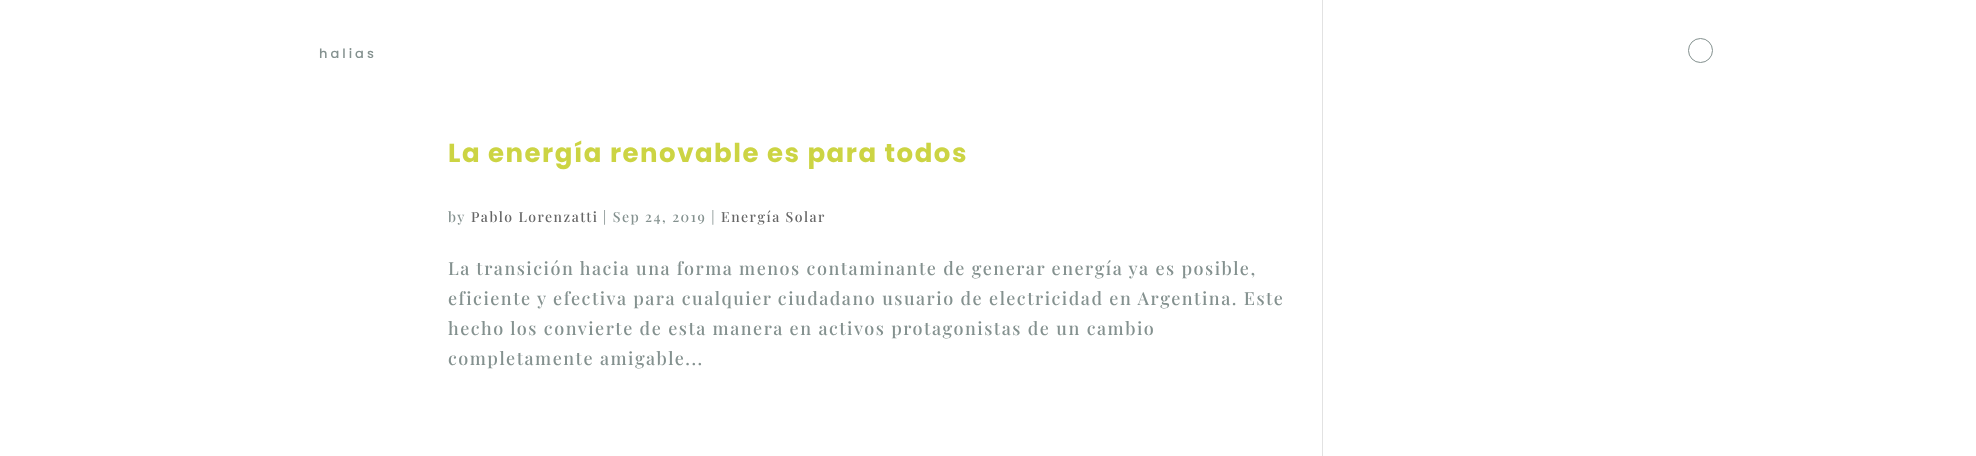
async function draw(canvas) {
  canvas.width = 1976;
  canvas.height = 456;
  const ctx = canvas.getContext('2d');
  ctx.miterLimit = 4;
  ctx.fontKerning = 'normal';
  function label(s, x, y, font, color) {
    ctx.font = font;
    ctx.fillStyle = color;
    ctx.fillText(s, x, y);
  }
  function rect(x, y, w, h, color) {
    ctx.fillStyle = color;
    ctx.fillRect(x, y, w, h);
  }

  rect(0, 0, 1976, 456, '#fff');
  ctx.letterSpacing = '3px';
  label('halias', 319, 58, '500 13px Poppins', '#84918f');
  ctx.beginPath();
  ctx.arc(1700.5, 50.5, 12, 0, 2 * Math.PI);
  ctx.strokeStyle = '#84918f';
  ctx.stroke();
  ctx.letterSpacing = '1.5px';
  label('La energía renovable es para todos', 448, 162, 'bold 26px Poppins', '#ccd443');
  label('by', 448, 222, '500 14px Playfair Display', '#84918f');
  label('Pablo Lorenzatti', 471, 222, '500 14px Playfair Display', '#666');
  label('| Sep 24, 2019 |', 603, 222, '500 14px Playfair Display', '#84918f');
  label('Energía Solar', 721, 222, '500 14px Playfair Display', '#666');
  label('La transición hacia una forma menos contaminante de generar energía ya es posible,', 448, 275, '500 18px Playfair Display', '#84918f');
  label('eficiente y efectiva para cualquier ciudadano usuario de electricidad en Argentina. Este', 448, 305, '500 18px Playfair Display', '#84918f');
  label('hecho los convierte de esta manera en activos protagonistas de un cambio', 448, 335, '500 18px Playfair Display', '#84918f');
  label('completamente amigable...', 448, 365, '500 18px Playfair Display', '#84918f');
  rect(1322, 0, 1, 456, '#e2e2e2');
}

draw(document.querySelector('canvas'));
